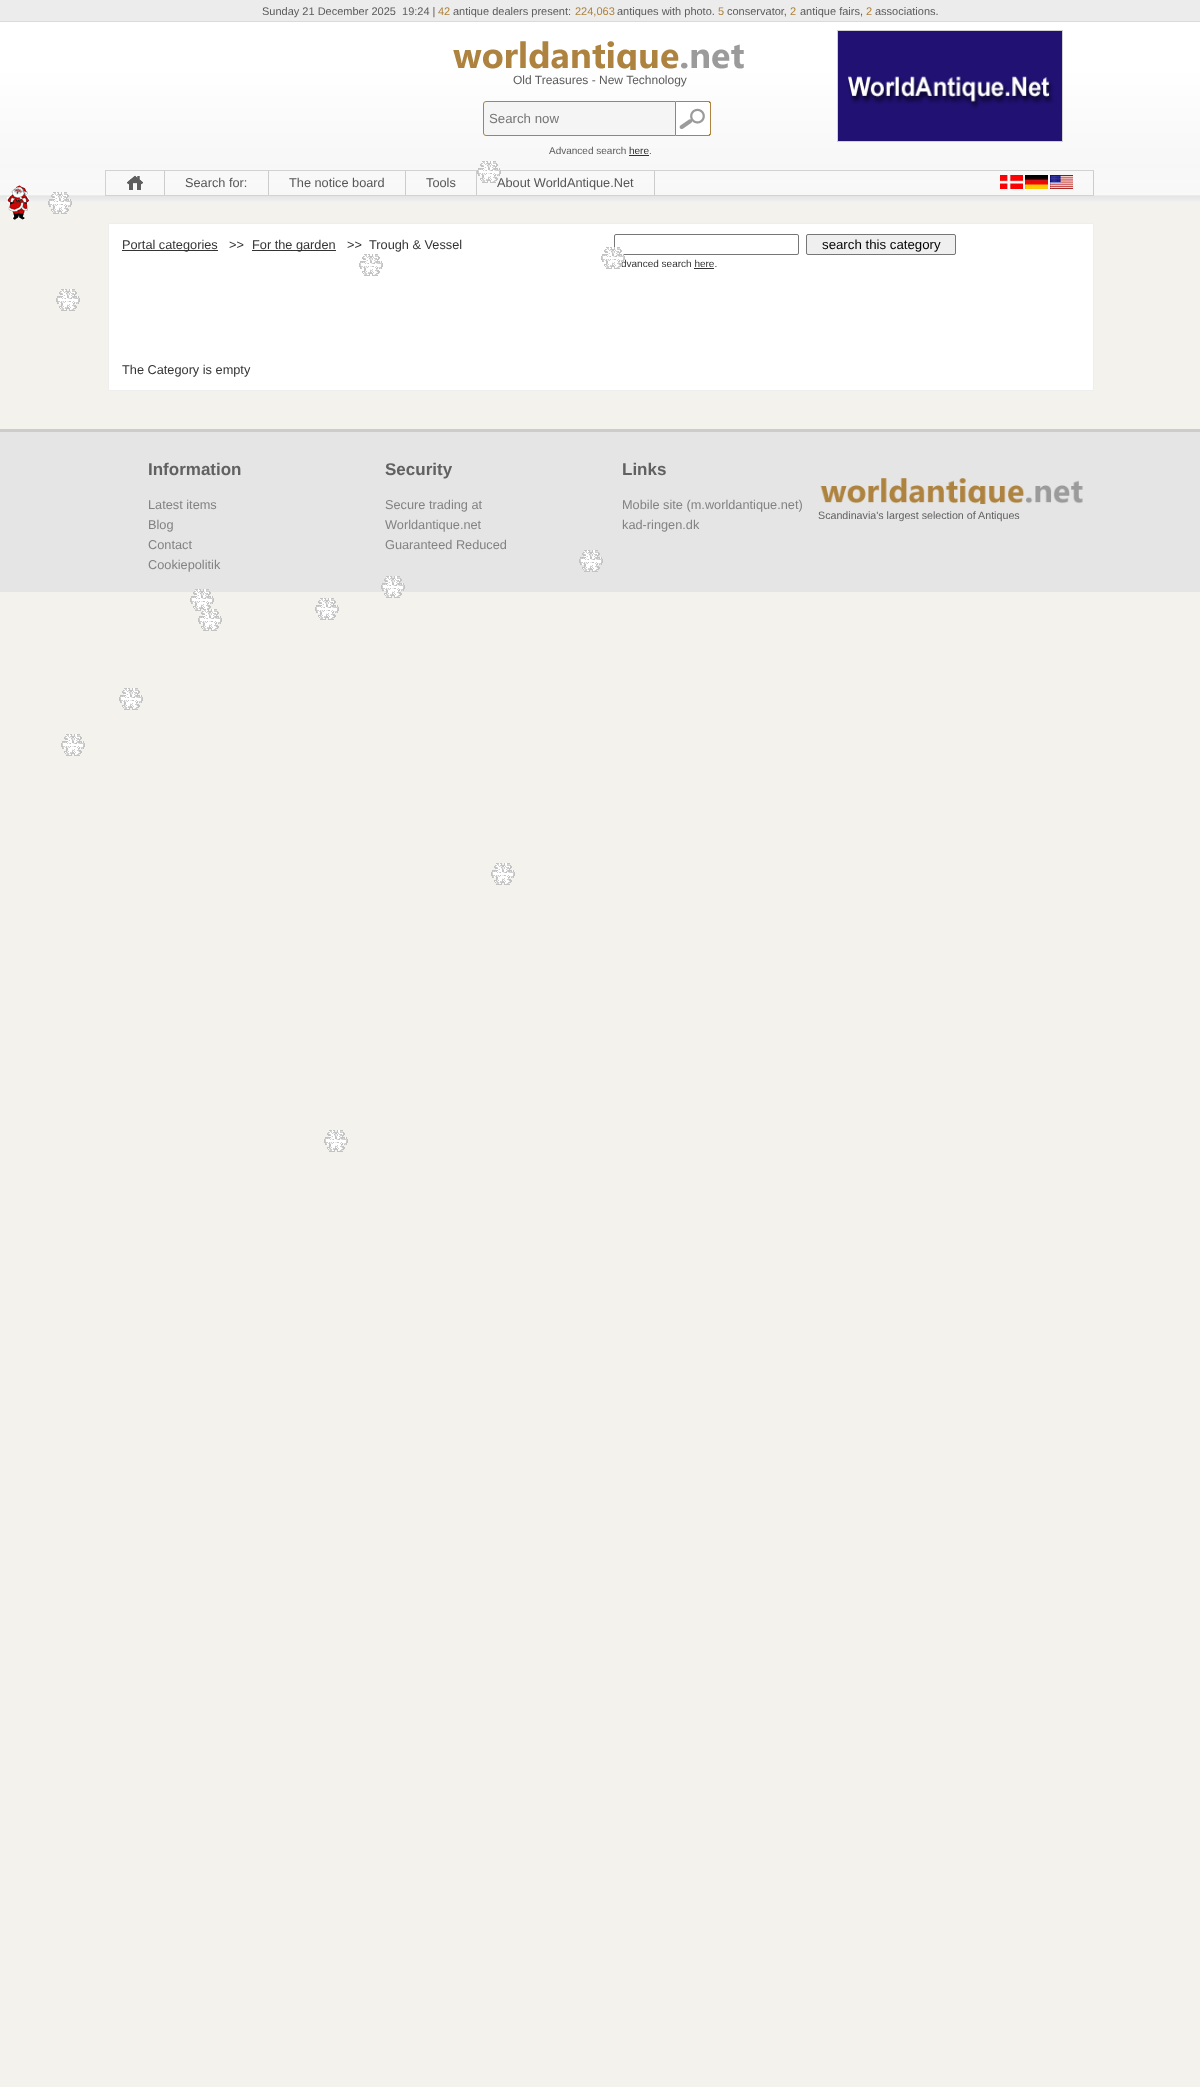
async function draw(canvas) {
  canvas.width = 1200;
  canvas.height = 2087;
  const ctx = canvas.getContext('2d');
  ctx.miterLimit = 4;
  ctx.fontKerning = 'normal';
  function label(s, x, y, font, color) {
    ctx.font = font;
    ctx.fillStyle = color;
    ctx.fillText(s, x, y);
  }
  function rect(x, y, w, h, color) {
    ctx.fillStyle = color;
    ctx.fillRect(x, y, w, h);
  }
  async function image(src, x, y, w, h) {
    const img = new Image();
    img.src = src;
    await img.decode();
    ctx.drawImage(img, x, y, w, h);
  }

  rect(0, 0, 1200, 2087, '#f4f2ec');
  await image('assets/img1.png', 0, 0, 1200, 203);
  label('Sunday 21 December 2025  19:24 |', 262, 15, '11px Liberation Sans', '#5b5b5b');
  label('42', 438, 15, '11px Liberation Sans', '#ae833f');
  label('antique dealers present:', 453, 15, '11px Liberation Sans', '#5b5b5b');
  label('224,063', 575, 15, '11px Liberation Sans', '#ae833f');
  label('antiques with photo.', 617, 15, '11px Liberation Sans', '#5b5b5b');
  label('5', 718, 15, '11px Liberation Sans', '#ae833f');
  label('conservator,', 727, 15, '11px Liberation Sans', '#5b5b5b');
  label('2', 790, 15, '11px Liberation Sans', '#ae833f');
  label('antique fairs,', 800, 15, '11px Liberation Sans', '#5b5b5b');
  label('2', 866, 15, '11px Liberation Sans', '#ae833f');
  label('associations.', 875, 15, '11px Liberation Sans', '#5b5b5b');
  await image('assets/img2.png', 453, 41, 291, 29);
  label('Old Treasures - New Technology', 513, 84, '12px Liberation Sans', '#5b5b5b');
  ctx.fillStyle = '#f5f5f5';
  ctx.beginPath();
  ctx.roundRect(483.5, 101.5, 192, 34, [2.5, 0, 0, 2.5]);
  ctx.fill();
  ctx.strokeStyle = '#ae833f';
  ctx.stroke();
  label('Search now', 489, 123, '13.25px Liberation Sans', '#757575');
  await image('assets/img3.png', 676, 101, 35, 35);
  label('Advanced search', 549, 154, '10px Liberation Sans', '#5b5b5b');
  label('here', 629, 154, '10px Liberation Sans', '#333');
  label('.', 649, 154, '10px Liberation Sans', '#5b5b5b');
  rect(629, 155, 20, 1, '#333');
  ctx.strokeStyle = '#d1d1d1';
  ctx.strokeRect(837.5, 30.5, 225, 111);
  await image('assets/img4.png', 838, 31, 224, 110);
  rect(108, 193, 985, 1, '#f7f7f7');
  rect(105, 170, 989, 1, '#d2d2d2');
  rect(105, 195, 989, 1, '#d2d2d2');
  rect(105, 170, 1, 26, '#d2d2d2');
  rect(164, 171, 1, 24, '#ccc');
  await image('assets/img5.png', 127, 175, 16, 15);
  rect(268, 171, 1, 24, '#ccc');
  label('Search for:', 185, 187, '12.75px Liberation Sans', '#555');
  rect(405, 171, 1, 24, '#ccc');
  label('The notice board', 289, 187, '12.75px Liberation Sans', '#555');
  rect(476, 171, 1, 24, '#ccc');
  label('Tools', 426, 187, '12.75px Liberation Sans', '#555');
  rect(654, 171, 1, 24, '#ccc');
  label('About WorldAntique.Net', 497, 187, '12.75px Liberation Sans', '#555');
  rect(1093, 171, 1, 24, '#ccc');
  await image('assets/img6.png', 1000, 175, 73, 14);
  await image('assets/img7.png', 477, 161, 24, 22);
  await image('assets/img8.png', 7, 185, 23, 35);
  await image('assets/img9.png', 48, 192, 24, 22);
  ctx.fillStyle = '#fff';
  ctx.beginPath();
  ctx.rect(108.5, 223.5, 985, 167);
  ctx.fill();
  ctx.strokeStyle = '#eee';
  ctx.stroke();
  rect(122, 250, 96, 1, '#333');
  label('Portal categories', 122, 249, '12.75px Liberation Sans', '#333');
  label('>>', 229, 249, '12.75px Liberation Sans', '#333');
  rect(252, 250, 84, 1, '#333');
  label('For the garden', 252, 249, '12.75px Liberation Sans', '#333');
  label('>>', 347, 249, '12.75px Liberation Sans', '#333');
  label('Trough & Vessel', 369, 249, '12.75px Liberation Sans', '#333');
  ctx.beginPath();
  ctx.roundRect(614.5, 234.5, 184, 20, 1.5);
  ctx.strokeStyle = '#767676';
  ctx.stroke();
  ctx.fillStyle = '#efefef';
  ctx.beginPath();
  ctx.roundRect(806.5, 234.5, 149, 20, 1.5);
  ctx.fill();
  ctx.stroke();
  label('search this category', 822, 249, '13.25px Liberation Sans', '#000');
  label('dvanced search here.', 621, 267, '10px Liberation Sans', '#333');
  rect(694, 268, 20, 1, '#333');
  label('The Category is empty', 122, 374, '12.75px Liberation Sans', '#333');
  await image('assets/img10.png', 359, 254, 24, 22);
  await image('assets/img11.png', 601, 247, 24, 22);
  await image('assets/img12.png', 56, 289, 24, 22);
  rect(0, 432, 1200, 160, '#e5e5e5');
  rect(0, 429, 1200, 3, '#ccc');
  label('Information', 148, 475, 'bold 17px Liberation Sans', '#616161');
  label('Latest items', 148, 509, '12.75px Liberation Sans', '#828282');
  label('Blog', 148, 529, '12.75px Liberation Sans', '#828282');
  label('Contact', 148, 549, '12.75px Liberation Sans', '#828282');
  label('Cookiepolitik', 148, 569, '12.75px Liberation Sans', '#828282');
  label('Security', 385, 475, 'bold 17px Liberation Sans', '#616161');
  label('Secure trading at', 385, 509, '12.75px Liberation Sans', '#828282');
  label('Worldantique.net', 385, 529, '12.75px Liberation Sans', '#828282');
  label('Guaranteed Reduced', 385, 549, '12.75px Liberation Sans', '#828282');
  label('Links', 622, 475, 'bold 17px Liberation Sans', '#616161');
  label('Mobile site (m.worldantique.net)', 622, 509, '12.75px Liberation Sans', '#828282');
  label('kad-ringen.dk', 622, 529, '12.75px Liberation Sans', '#828282');
  await image('assets/img13.png', 820, 478, 263, 26);
  label('Scandinavia\'s largest selection of Antiques', 818, 519, '10.7px Liberation Sans', '#616161');
  await image('assets/img14.png', 579, 550, 24, 22);
  await image('assets/img15.png', 190, 589, 24, 22);
  await image('assets/img12.png', 315, 598, 24, 22);
  await image('assets/img16.png', 381, 576, 24, 22);
  await image('assets/img17.png', 198, 609, 24, 22);
  await image('assets/img12.png', 119, 688, 24, 22);
  await image('assets/img12.png', 61, 734, 24, 22);
  await image('assets/img12.png', 491, 863, 24, 22);
  await image('assets/img12.png', 324, 1130, 24, 22);
}

draw(document.querySelector('canvas'));
